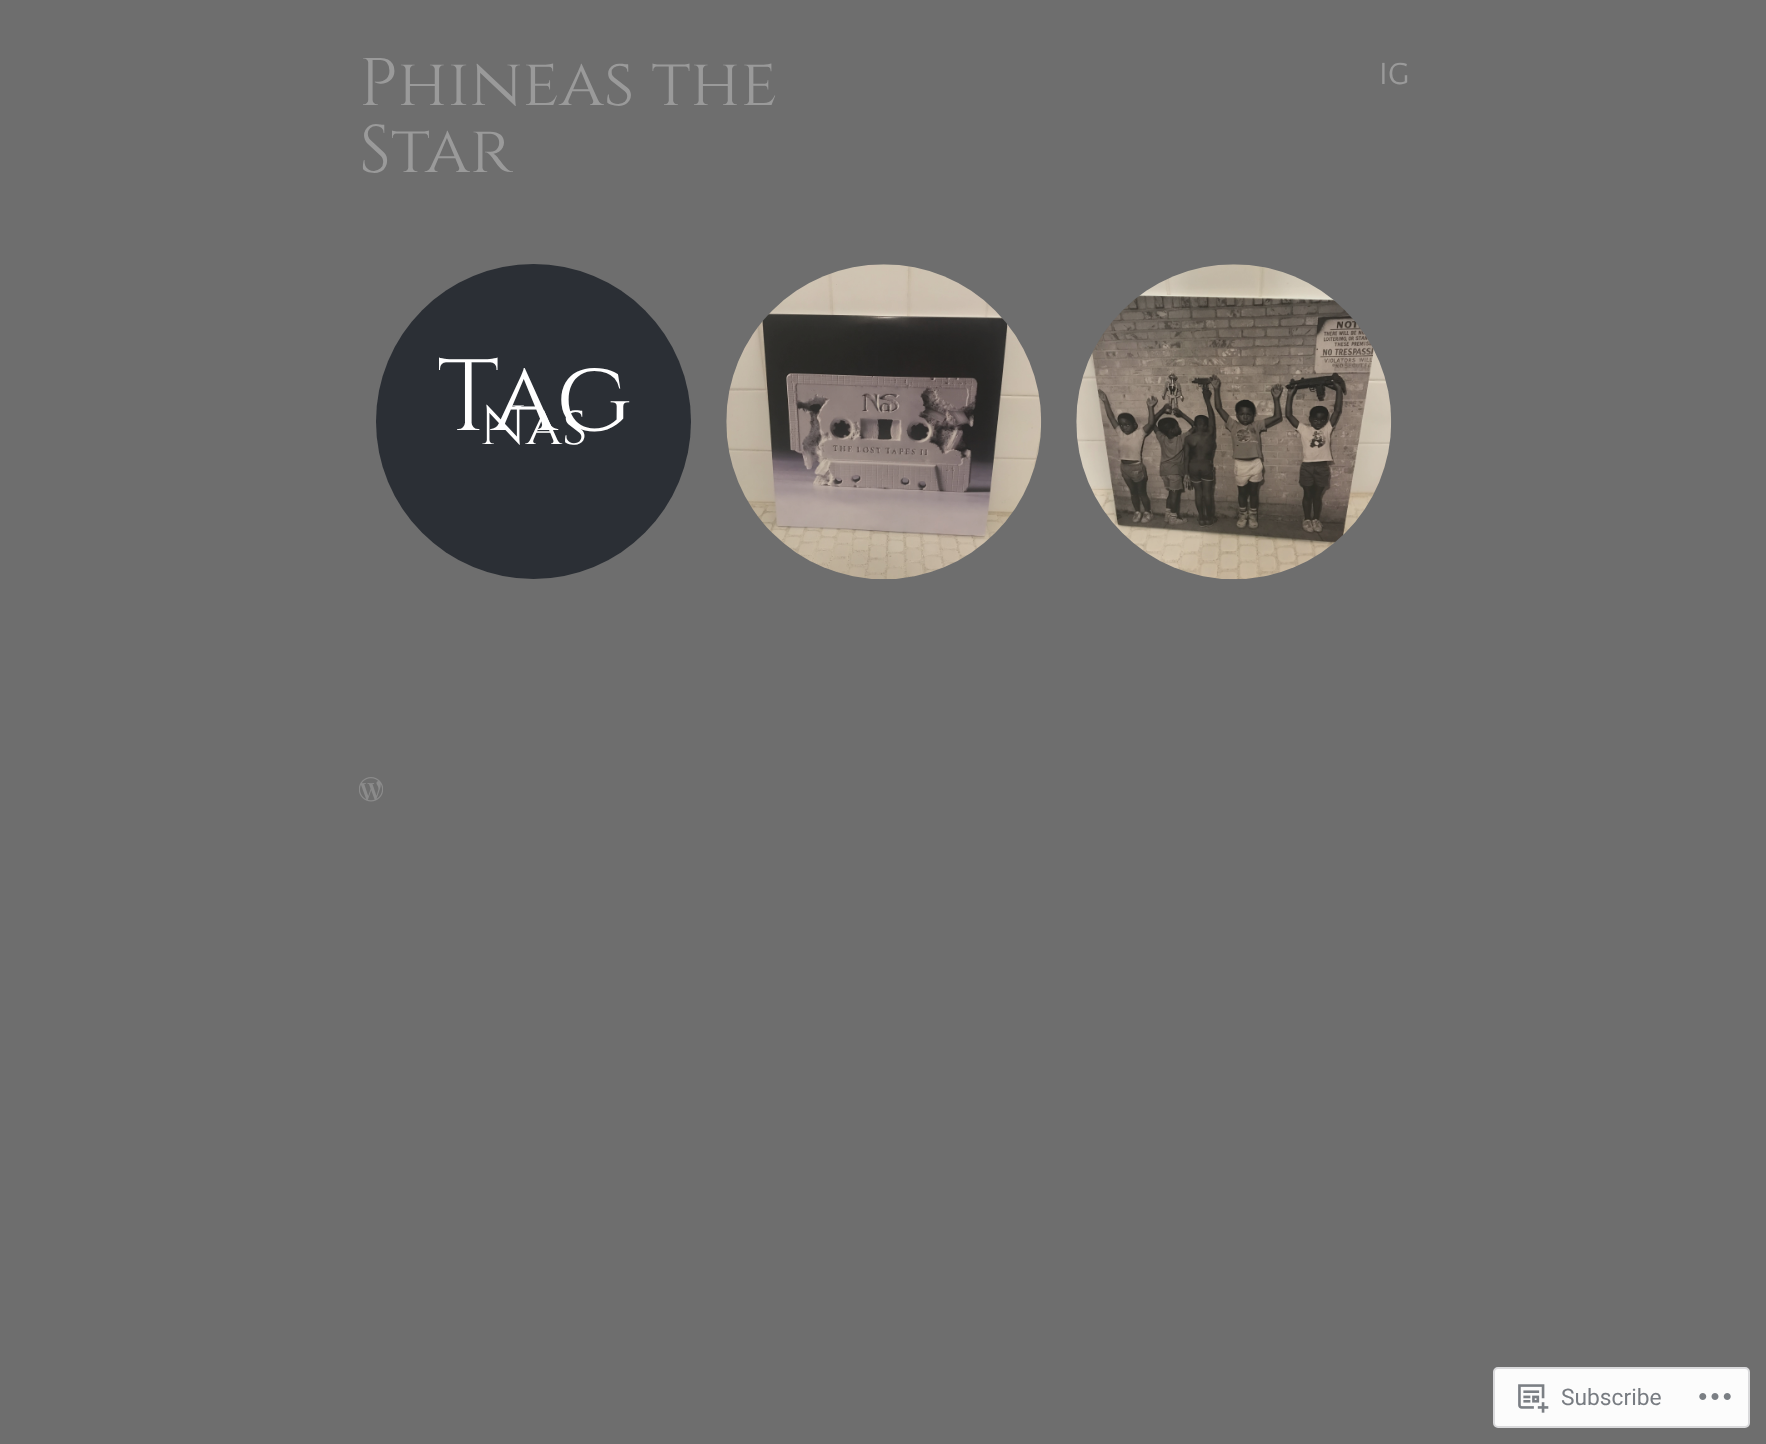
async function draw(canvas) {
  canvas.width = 1766;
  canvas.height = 1444;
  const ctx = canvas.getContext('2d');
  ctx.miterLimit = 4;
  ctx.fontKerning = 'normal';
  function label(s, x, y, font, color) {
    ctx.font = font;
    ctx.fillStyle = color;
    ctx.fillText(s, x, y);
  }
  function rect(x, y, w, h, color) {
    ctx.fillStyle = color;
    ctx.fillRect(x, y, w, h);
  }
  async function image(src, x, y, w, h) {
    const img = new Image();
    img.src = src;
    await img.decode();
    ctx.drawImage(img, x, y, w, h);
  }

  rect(0, 0, 1766, 1444, '#6e6e6e');
  label('Phineas the', 359, 105, '67.25px Cinzel', '#9a9a9a');
  label('Star', 359, 172, '67.25px Cinzel', '#9a9a9a');
  label('IG', 1379, 84, '32px Quattrocento Sans', '#9a9a9a');
  ctx.fillStyle = '#2b2f35';
  ctx.beginPath();
  ctx.arc(533.5, 421.5, 157.5, 0, 2 * Math.PI);
  ctx.fill();
  label('Tag', 437, 430, '101px Cinzel', '#fff');
  label('Nas', 480, 444, '55px Cinzel', '#fff');
  await image('assets/img1.png', 726, 264, 316, 316);
  await image('assets/img2.png', 1076, 264, 316, 316);
  await image('assets/img3.png', 359, 777, 24, 25);
  ctx.fillStyle = '#fcfcfc';
  ctx.beginPath();
  ctx.roundRect(1494, 1368, 255, 59, 4);
  ctx.fill();
  ctx.strokeStyle = '#dadadc';
  ctx.lineWidth = 2;
  ctx.stroke();
  await image('assets/img4.png', 1518, 1384, 31, 29);
  label('Subscribe', 1561, 1405, '22.75px Roboto', '#787c82');
  await image('assets/img5.png', 1699, 1393, 32, 7);
}

draw(document.querySelector('canvas'));
